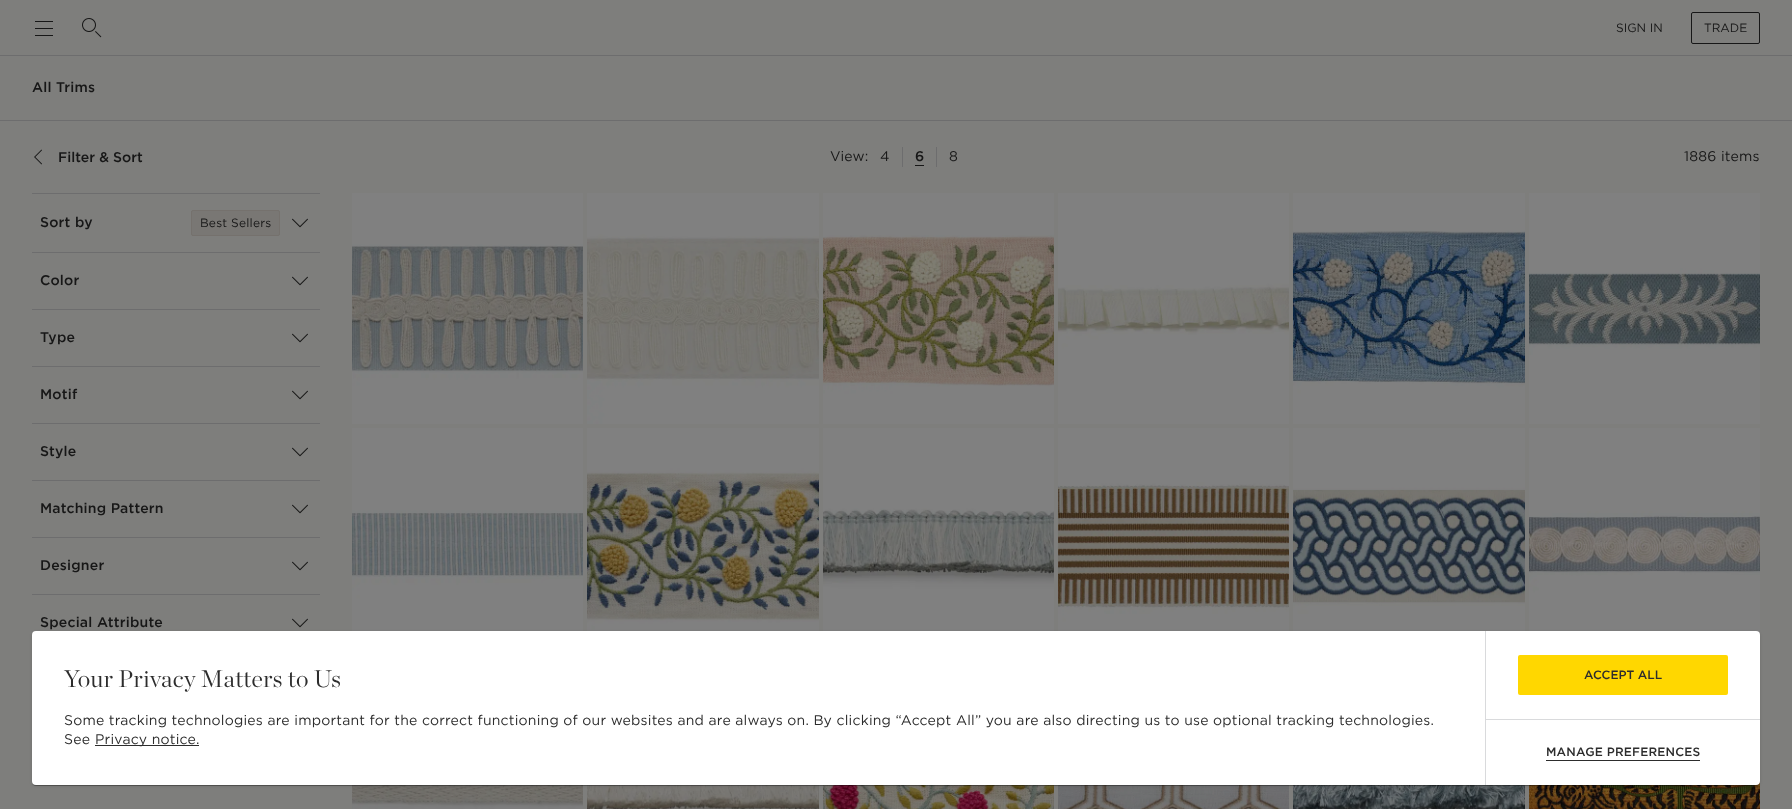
async function draw(canvas) {
  canvas.width = 1792;
  canvas.height = 809;
  const ctx = canvas.getContext('2d');
  ctx.miterLimit = 4;
  ctx.fontKerning = 'normal';
  function label(s, x, y, font, color) {
    ctx.font = font;
    ctx.fillStyle = color;
    ctx.fillText(s, x, y);
  }
  function rect(x, y, w, h, color) {
    ctx.fillStyle = color;
    ctx.fillRect(x, y, w, h);
  }
  function roundedRect(x, y, w, h, r, color) {
    ctx.fillStyle = color;
    ctx.beginPath();
    ctx.roundRect(x, y, w, h, r);
    ctx.fill();
  }
  async function image(src, x, y, w, h) {
    const img = new Image();
    img.src = src;
    await img.decode();
    ctx.drawImage(img, x, y, w, h);
  }

  rect(0, 0, 1792, 809, '#7e7e7c');
  rect(0, 55, 1792, 1, '#6d6d6e');
  rect(35, 28, 18, 1, '#171717');
  rect(35, 35, 18, 1, '#171717');
  rect(35, 21, 18, 1, '#171717');
  await image('assets/img1.png', 82, 18, 20, 20);
  label('SIGN IN', 1616, 32, '12px Gotham', '#171717');
  ctx.beginPath();
  ctx.roundRect(1691.5, 12.5, 68, 31, 1.5);
  ctx.strokeStyle = '#171717';
  ctx.stroke();
  label('TRADE', 1704, 32, '12px Gotham', '#171717');
  rect(0, 120, 1792, 1, '#6d6d6e');
  ctx.letterSpacing = '0.21px';
  label('All Trims', 32, 92, '500 14px Gotham', '#171717');
  await image('assets/img2.png', 34, 149, 8, 16);
  ctx.letterSpacing = '0px';
  label('Filter & Sort', 58, 162, '500 14px Gotham', '#171717');
  ctx.letterSpacing = '0.21px';
  label('View:', 830, 161, '14px Gotham', '#171717');
  label('4', 880, 161, '14px Gotham', '#171717');
  rect(902, 147, 1, 20, '#6d6d6e');
  label('6', 915, 161, '500 14px Gotham', '#171717');
  rect(915, 165, 9, 1, '#171717');
  rect(936, 147, 1, 20, '#6d6d6e');
  label('8', 949, 161, '14px Gotham', '#171717');
  label('1886 items', 1684, 161, '14px Gotham', '#171717');
  rect(32, 193, 288, 1, '#6d6d6e');
  label('Sort by', 40, 227, '500 14px Gotham', '#171717');
  ctx.fillStyle = '#797774';
  ctx.beginPath();
  ctx.roundRect(191.5, 210.5, 88, 25, 1.5);
  ctx.fill();
  ctx.strokeStyle = '#75716d';
  ctx.stroke();
  ctx.letterSpacing = '0.2px';
  label('Best Sellers', 200, 227, '12px Gotham', '#171717');
  await image('assets/img3.png', 292, 218, 16, 10);
  rect(32, 252, 288, 1, '#6d6d6e');
  ctx.letterSpacing = '0.21px';
  label('Color', 40, 285, '500 14px Gotham', '#171717');
  await image('assets/img3.png', 292, 276, 16, 10);
  rect(32, 309, 288, 1, '#6d6d6e');
  label('Type', 40, 342, '500 14px Gotham', '#171717');
  await image('assets/img3.png', 292, 333, 16, 10);
  rect(32, 366, 288, 1, '#6d6d6e');
  label('Motif', 40, 399, '500 14px Gotham', '#171717');
  await image('assets/img3.png', 292, 390, 16, 10);
  rect(32, 423, 288, 1, '#6d6d6e');
  label('Style', 40, 456, '500 14px Gotham', '#171717');
  await image('assets/img3.png', 292, 447, 16, 10);
  rect(32, 480, 288, 1, '#6d6d6e');
  label('Matching Pattern', 40, 513, '500 14px Gotham', '#171717');
  await image('assets/img3.png', 292, 504, 16, 10);
  rect(32, 537, 288, 1, '#6d6d6e');
  label('Designer', 40, 570, '500 14px Gotham', '#171717');
  await image('assets/img3.png', 292, 561, 16, 10);
  rect(32, 594, 288, 1, '#6d6d6e');
  label('Special Attribute', 40, 627, '500 14px Gotham', '#171717');
  await image('assets/img3.png', 292, 618, 16, 10);
  await image('assets/img4.png', 352, 193, 231, 231);
  await image('assets/img5.png', 587, 193, 232, 231);
  await image('assets/img6.png', 823, 193, 231, 231);
  await image('assets/img7.png', 1058, 193, 231, 231);
  await image('assets/img8.png', 1293, 193, 232, 231);
  await image('assets/img9.png', 1529, 193, 231, 231);
  await image('assets/img10.png', 352, 428, 231, 203);
  await image('assets/img11.png', 587, 428, 232, 203);
  await image('assets/img12.png', 823, 428, 231, 203);
  await image('assets/img13.png', 1058, 428, 231, 203);
  await image('assets/img14.png', 1293, 428, 232, 203);
  await image('assets/img15.png', 1529, 428, 231, 207);
  await image('assets/img16.png', 352, 785, 231, 24);
  await image('assets/img17.png', 587, 785, 232, 24);
  await image('assets/img18.png', 823, 785, 231, 24);
  await image('assets/img19.png', 1058, 785, 231, 24);
  await image('assets/img20.png', 1293, 785, 232, 24);
  await image('assets/img21.png', 1529, 781, 231, 28);
  ctx.fillStyle = '#0000001f';
  ctx.filter = 'blur(1.5px)';
  ctx.beginPath();
  ctx.roundRect(32, 632, 1728, 154, 4);
  ctx.fill();
  ctx.filter = 'none';
  ctx.fillStyle = '#00000024';
  ctx.filter = 'blur(0.5px)';
  ctx.beginPath();
  ctx.roundRect(32, 632, 1728, 154, 4);
  ctx.fill();
  ctx.filter = 'none';
  ctx.fillStyle = '#00000033';
  ctx.filter = 'blur(0.5px)';
  ctx.beginPath();
  ctx.roundRect(33, 634, 1726, 152, 3);
  ctx.fill();
  ctx.filter = 'none';
  roundedRect(32, 631, 1728, 154, 4, '#fff');
  ctx.letterSpacing = '0.35px';
  label('Your Privacy Matters to Us', 64, 687, '300 24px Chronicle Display', '#2d2d2d');
  ctx.letterSpacing = '0.21px';
  label('Some tracking technologies are important for the correct functioning of our websites and are always on. By clicking “Accept All” you are also directing us to use optional tracking technologies.', 64, 725, '14px Gotham', '#2d2d2d');
  label('See', 64, 744, '14px Gotham', '#2d2d2d');
  rect(95, 745, 104, 1, '#2d2d2d');
  label('Privacy notice.', 95, 744, '14px Gotham', '#2d2d2d');
  rect(1485, 631, 1, 154, '#d9dadc');
  roundedRect(1518, 655, 210, 40, 2, '#ffd700');
  ctx.letterSpacing = '0px';
  label('ACCEPT ALL', 1584, 679, '500 12px Gotham', '#2d2d2d');
  rect(1486, 719, 274, 1, '#d9dadc');
  rect(1546, 760, 154, 1, '#2d2d2d');
  ctx.letterSpacing = '0.2px';
  label('MANAGE PREFERENCES', 1546, 756, '500 12px Gotham', '#2d2d2d');
}

draw(document.querySelector('canvas'));
